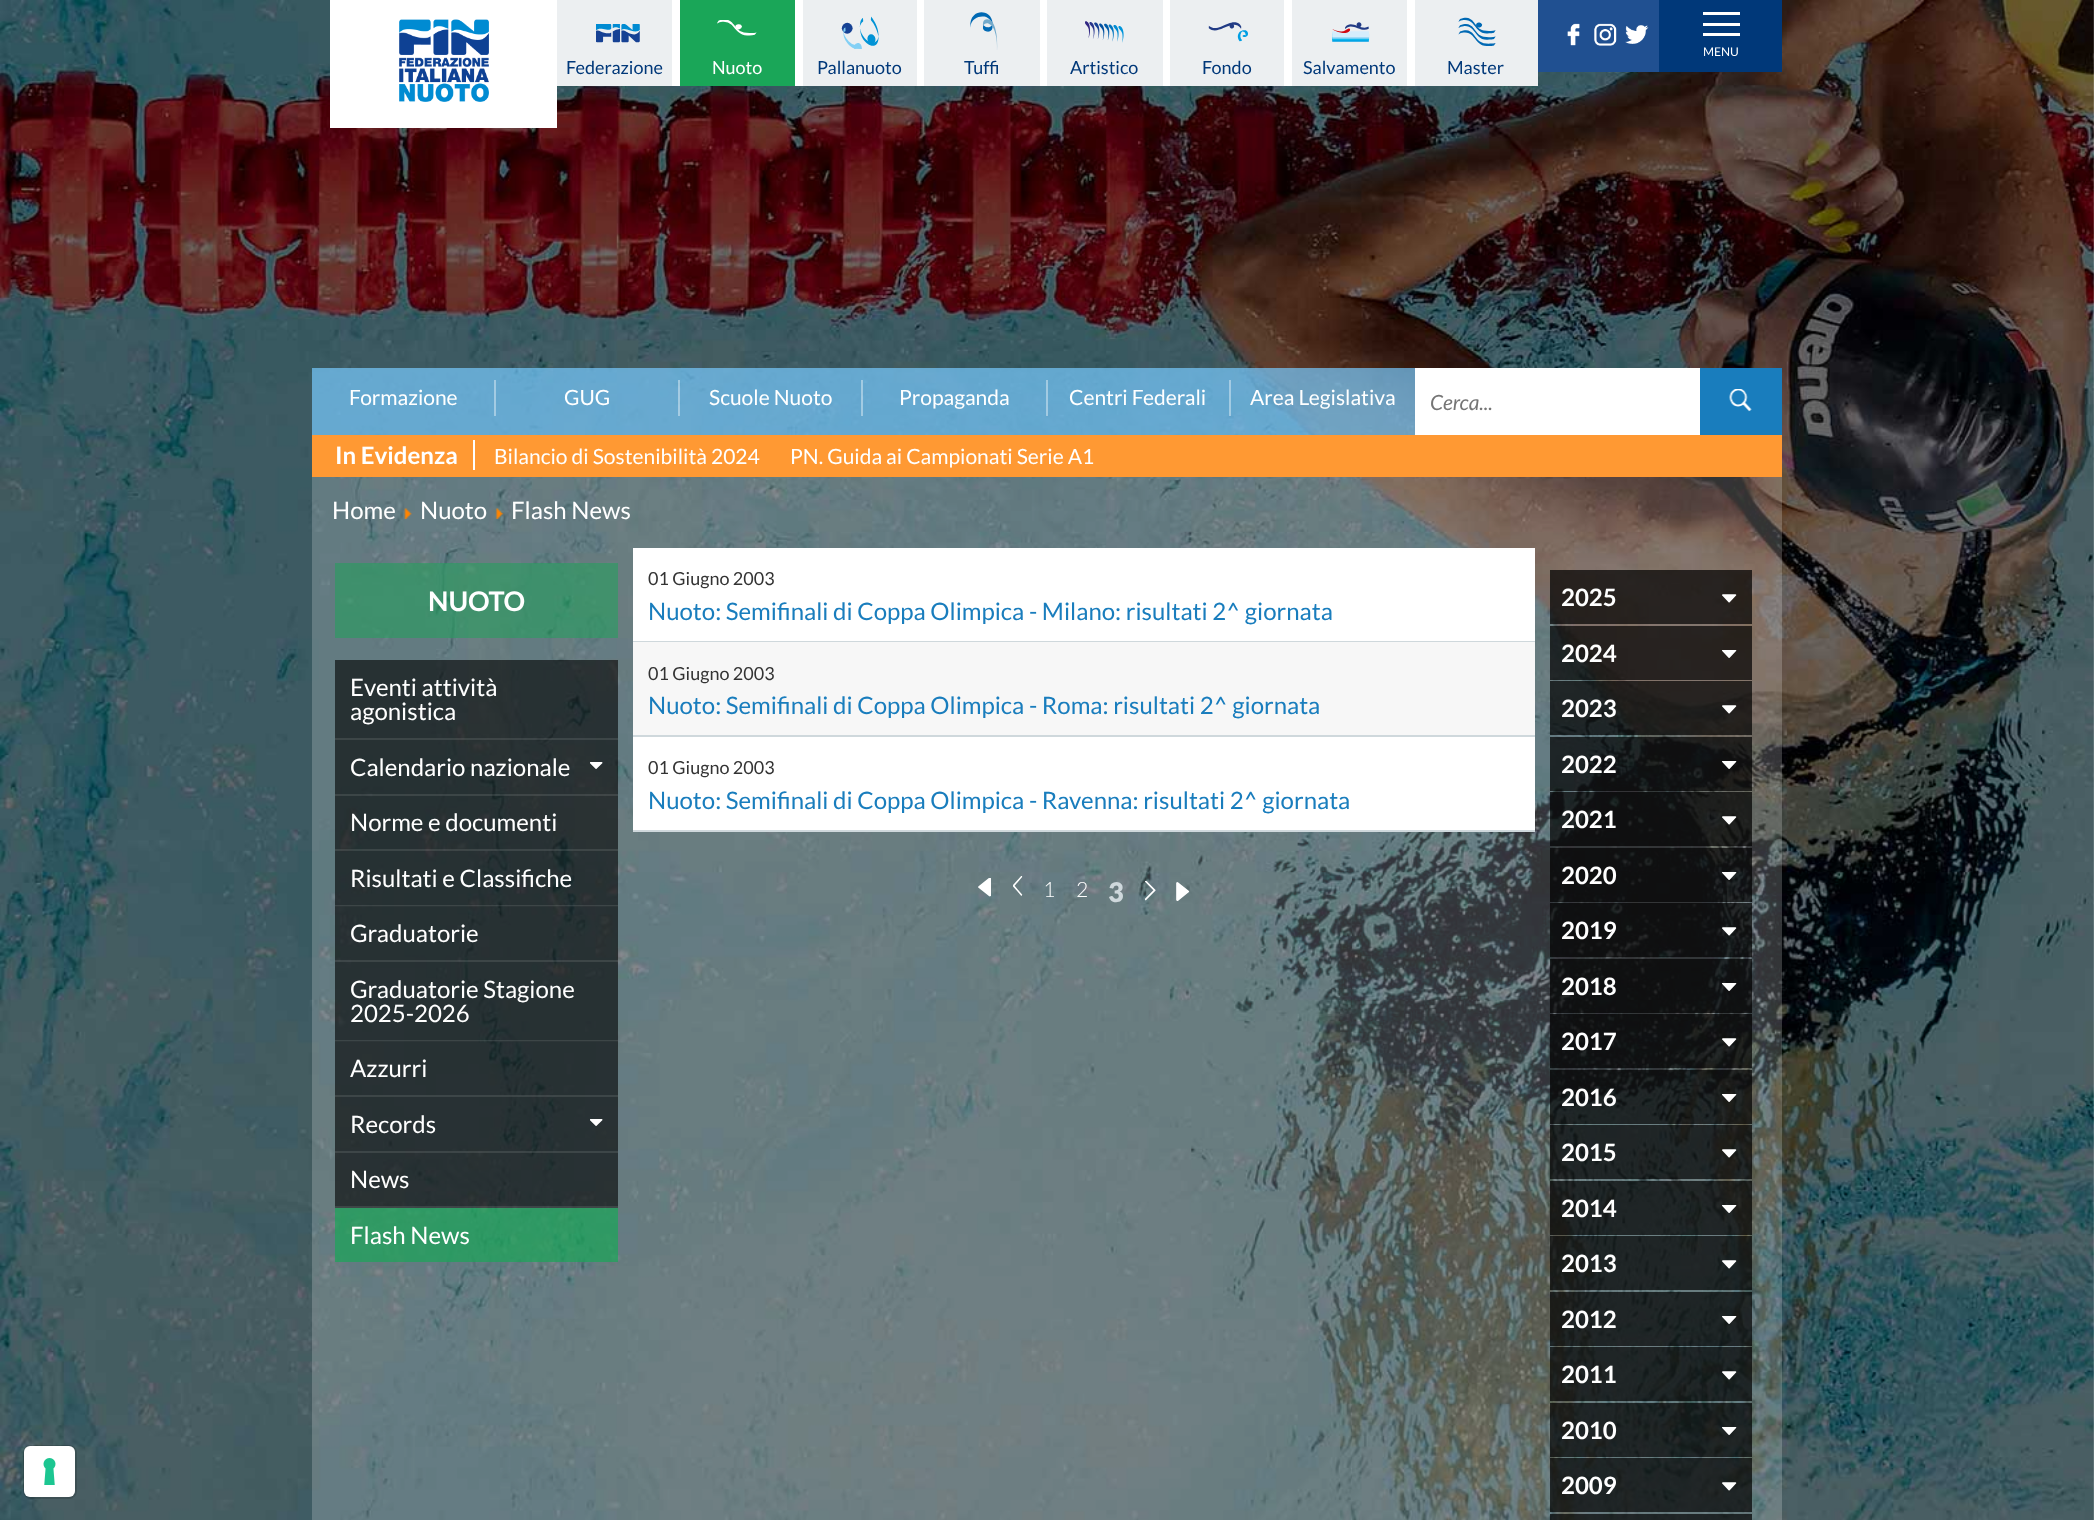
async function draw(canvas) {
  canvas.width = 2094;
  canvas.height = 1520;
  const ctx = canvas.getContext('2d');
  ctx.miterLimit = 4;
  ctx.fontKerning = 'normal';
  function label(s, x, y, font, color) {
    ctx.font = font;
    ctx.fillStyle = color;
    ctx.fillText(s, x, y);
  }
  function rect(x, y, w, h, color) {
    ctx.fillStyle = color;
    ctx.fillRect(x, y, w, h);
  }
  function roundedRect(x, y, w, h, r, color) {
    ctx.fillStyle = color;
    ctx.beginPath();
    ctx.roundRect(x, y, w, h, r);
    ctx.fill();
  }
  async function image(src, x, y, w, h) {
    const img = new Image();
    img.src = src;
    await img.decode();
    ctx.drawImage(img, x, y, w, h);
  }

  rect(0, 0, 2094, 1520, '#fff');
  await image('assets/img1.png', 0, 0, 2094, 1520);
  ctx.beginPath();
  ctx.roundRect(24, 1446, 52, 52, 7);
  ctx.strokeStyle = '#00000026';
  ctx.lineWidth = 2;
  ctx.stroke();
  roundedRect(24, 1446, 51, 51, 6, '#fff');
  await image('assets/img2.png', 43, 1458, 13, 27);
  rect(330, 0, 227, 128, '#fff');
  await image('assets/img3.png', 399, 19, 90, 83);
  rect(1538, 0, 121, 72, '#205091');
  await image('assets/img4.png', 1567, 23, 13, 23);
  await image('assets/img5.png', 1594, 23, 23, 23);
  await image('assets/img6.png', 1625, 25, 24, 19);
  rect(1659, 0, 123, 72, '#003879');
  rect(1703, 12, 37, 3, '#fff');
  rect(1703, 23, 37, 3, '#fff');
  rect(1703, 33, 37, 3, '#fff');
  label('MENU', 1703, 56, '12px Lato', '#fff');
  rect(557, 0, 115, 86, '#eceff1');
  rect(672, 0, 8, 86, '#fff');
  await image('assets/img7.png', 596, 24, 44, 19);
  label('Federazione', 566, 74, '18px Lato', '#003879');
  rect(680, 0, 115, 86, '#1aa658');
  rect(795, 0, 8, 86, '#fff');
  await image('assets/img8.png', 717, 20, 40, 16);
  label('Nuoto', 712, 74, '18px Lato', '#fff');
  rect(803, 0, 114, 86, '#eceff1');
  rect(917, 0, 7, 86, '#fff');
  await image('assets/img9.png', 841, 16, 38, 33);
  label('Pallanuoto', 817, 74, '18px Lato', '#003879');
  rect(924, 0, 116, 86, '#eceff1');
  rect(1040, 0, 7, 86, '#fff');
  await image('assets/img10.png', 970, 12, 28, 38);
  label('Tuffi', 964, 74, '18px Lato', '#003879');
  rect(1047, 0, 116, 86, '#eceff1');
  rect(1163, 0, 7, 86, '#fff');
  await image('assets/img11.png', 1085, 21, 39, 22);
  label('Artistico', 1070, 74, '18px Lato', '#003879');
  rect(1170, 0, 114, 86, '#eceff1');
  rect(1284, 0, 8, 86, '#fff');
  await image('assets/img12.png', 1208, 22, 40, 20);
  label('Fondo', 1202, 74, '18px Lato', '#003879');
  rect(1292, 0, 115, 86, '#eceff1');
  rect(1407, 0, 8, 86, '#fff');
  await image('assets/img13.png', 1332, 22, 38, 20);
  label('Salvamento', 1303, 74, '18px Lato', '#003879');
  rect(1415, 0, 123, 86, '#eceff1');
  await image('assets/img14.png', 1458, 17, 38, 29);
  label('Master', 1447, 74, '18px Lato', '#003879');
  rect(312, 368, 1103, 67, '#77cbffb3');
  rect(494, 380, 2, 36, '#a3cbe3');
  label('Formazione', 349, 405, '21px Lato', '#fff');
  rect(678, 380, 2, 36, '#ffffff66');
  label('GUG', 564, 405, '21px Lato', '#fff');
  rect(861, 380, 2, 36, '#ffffff66');
  label('Scuole Nuoto', 709, 405, '21px Lato', '#fff');
  rect(1046, 380, 2, 36, '#ffffff66');
  label('Propaganda', 899, 405, '21px Lato', '#fff');
  rect(1229, 380, 2, 36, '#ffffff66');
  label('Centri Federali', 1069, 405, '21px Lato', '#fff');
  label('Area Legislativa', 1250, 405, '21px Lato', '#fff');
  rect(1415, 368, 285, 67, '#fff');
  label('Cerca...', 1430, 410, 'italic 21px Lato', '#757575');
  rect(1700, 368, 82, 67, '#197dbd');
  await image('assets/img15.png', 1729, 389, 23, 23);
  rect(312, 435, 1470, 42, '#f93');
  rect(473, 440, 2, 30, '#fff');
  label('In Evidenza', 335, 464, 'bold 24px Lato', '#fff');
  label('Bilancio di Sostenibilità 2024', 494, 464, '21px Lato', '#fff');
  label('PN. Guida ai Campionati Serie A1', 790, 464, '21px Lato', '#fff');
  rect(312, 477, 1470, 63, '#ffffff33');
  label('Home', 332, 519, '24px Lato', '#fff');
  await image('assets/img16.png', 404, 508, 8, 11);
  label('Nuoto', 420, 519, '24px Lato', '#fff');
  await image('assets/img17.png', 495, 508, 9, 11);
  label('Flash News', 511, 519, '24px Lato', '#fff');
  rect(312, 540, 1470, 980, '#ffffff33');
  rect(335, 563, 283, 75, '#1aa65880');
  label('NUOTO', 428, 611, 'bold 27px Lato', '#fff');
  rect(335, 660, 283, 80, '#00000099');
  rect(335, 738, 283, 2, '#ffffff1a');
  label('Eventi attività', 350, 696, '24px Lato', '#fff');
  label('agonistica', 350, 720, '24px Lato', '#fff');
  rect(335, 740, 283, 55, '#00000099');
  rect(335, 795, 283, 56, '#00000099');
  rect(335, 794, 283, 2, '#ffffff1a');
  label('Calendario nazionale', 350, 776, '24px Lato', '#fff');
  await image('assets/img18.png', 590, 762, 13, 7);
  rect(335, 849, 283, 2, '#ffffff1a');
  label('Norme e documenti', 350, 831, '24px Lato', '#fff');
  rect(335, 851, 283, 55, '#00000099');
  rect(335, 905, 283, 2, '#ffffff1a');
  label('Risultati e Classifiche', 350, 887, '24px Lato', '#fff');
  rect(335, 906, 283, 56, '#00000099');
  rect(335, 960, 283, 2, '#ffffff1a');
  label('Graduatorie', 350, 942, '24px Lato', '#fff');
  rect(335, 962, 283, 79, '#00000099');
  rect(335, 1040, 283, 2, '#ffffff1a');
  label('Graduatorie Stagione', 350, 998, '24px Lato', '#fff');
  label('2025-2026', 350, 1022, '24px Lato', '#fff');
  rect(335, 1041, 283, 56, '#00000099');
  rect(335, 1095, 283, 2, '#ffffff1a');
  label('Azzurri', 350, 1077, '24px Lato', '#fff');
  rect(335, 1097, 283, 55, '#00000099');
  rect(335, 1152, 283, 56, '#00000099');
  rect(335, 1151, 283, 2, '#ffffff1a');
  label('Records', 350, 1133, '24px Lato', '#fff');
  await image('assets/img19.png', 590, 1119, 13, 7);
  rect(335, 1206, 283, 2, '#ffffff1a');
  label('News', 350, 1188, '24px Lato', '#fff');
  rect(335, 1208, 283, 54, '#1aa658b3');
  label('Flash News', 350, 1244, '24px Lato', '#fff');
  rect(633, 641, 902, 1, '#cfd8dc');
  rect(633, 548, 902, 93, '#fff');
  label('01 Giugno 2003', 648, 585, '18px Lato', '#333');
  label('Nuoto: Semifinali di Coppa Olimpica - Milano: risultati 2^ giornata', 648, 620, '24px Lato', '#197dbd');
  rect(633, 735, 902, 2, '#cfd8dc');
  rect(633, 642, 902, 93, '#f7f7f7');
  label('01 Giugno 2003', 648, 680, '18px Lato', '#333');
  label('Nuoto: Semifinali di Coppa Olimpica - Roma: risultati 2^ giornata', 648, 714, '24px Lato', '#197dbd');
  rect(633, 830, 902, 2, '#cfd8dc');
  rect(633, 737, 902, 93, '#fff');
  label('01 Giugno 2003', 648, 774, '18px Lato', '#333');
  label('Nuoto: Semifinali di Coppa Olimpica - Ravenna: risultati 2^ giornata', 648, 809, '24px Lato', '#197dbd');
  await image('assets/img20.png', 978, 878, 13, 19);
  await image('assets/img21.png', 1013, 876, 10, 20);
  label('1', 1043, 897, '300 21px Lato', '#fff');
  label('2', 1076, 897, '300 21px Lato', '#fff');
  label('3', 1108, 902, '900 27px Lato', '#cfd8dc');
  await image('assets/img22.png', 1145, 881, 11, 20);
  await image('assets/img23.png', 1176, 882, 14, 19);
  rect(1550, 570, 202, 54, '#000000b3');
  label('2025', 1561, 606, 'bold 24px Lato', '#fff');
  await image('assets/img24.png', 1722, 594, 15, 9);
  rect(1550, 626, 202, 54, '#000000b3');
  label('2024', 1561, 662, 'bold 24px Lato', '#fff');
  await image('assets/img25.png', 1722, 650, 15, 8);
  rect(1550, 681, 202, 54, '#000000b3');
  label('2023', 1561, 717, 'bold 24px Lato', '#fff');
  await image('assets/img26.png', 1722, 705, 15, 9);
  rect(1550, 737, 202, 54, '#000000b3');
  label('2022', 1561, 773, 'bold 24px Lato', '#fff');
  await image('assets/img27.png', 1722, 761, 15, 8);
  rect(1550, 792, 202, 54, '#000000b3');
  label('2021', 1561, 828, 'bold 24px Lato', '#fff');
  await image('assets/img28.png', 1722, 816, 15, 9);
  rect(1550, 848, 202, 54, '#000000b3');
  label('2020', 1561, 884, 'bold 24px Lato', '#fff');
  await image('assets/img29.png', 1722, 872, 15, 8);
  rect(1550, 903, 202, 54, '#000000b3');
  label('2019', 1561, 939, 'bold 24px Lato', '#fff');
  await image('assets/img30.png', 1722, 927, 15, 9);
  rect(1550, 959, 202, 54, '#000000b3');
  label('2018', 1561, 995, 'bold 24px Lato', '#fff');
  await image('assets/img31.png', 1722, 983, 15, 8);
  rect(1550, 1014, 202, 54, '#000000b3');
  label('2017', 1561, 1050, 'bold 24px Lato', '#fff');
  await image('assets/img32.png', 1722, 1038, 15, 9);
  rect(1550, 1070, 202, 54, '#000000b3');
  label('2016', 1561, 1106, 'bold 24px Lato', '#fff');
  await image('assets/img33.png', 1722, 1094, 15, 8);
  rect(1550, 1125, 202, 54, '#000000b3');
  label('2015', 1561, 1161, 'bold 24px Lato', '#fff');
  await image('assets/img34.png', 1722, 1149, 15, 9);
  rect(1550, 1181, 202, 54, '#000000b3');
  label('2014', 1561, 1217, 'bold 24px Lato', '#fff');
  await image('assets/img35.png', 1722, 1205, 15, 8);
  rect(1550, 1236, 202, 54, '#000000b3');
  label('2013', 1561, 1272, 'bold 24px Lato', '#fff');
  await image('assets/img36.png', 1722, 1260, 15, 9);
  rect(1550, 1292, 202, 54, '#000000b3');
  label('2012', 1561, 1328, 'bold 24px Lato', '#fff');
  await image('assets/img37.png', 1722, 1316, 15, 8);
  rect(1550, 1347, 202, 54, '#000000b3');
  label('2011', 1561, 1383, 'bold 24px Lato', '#fff');
  await image('assets/img38.png', 1722, 1371, 15, 9);
  rect(1550, 1403, 202, 54, '#000000b3');
  label('2010', 1561, 1439, 'bold 24px Lato', '#fff');
  await image('assets/img39.png', 1722, 1427, 15, 8);
  rect(1550, 1458, 202, 54, '#000000b3');
  label('2009', 1561, 1494, 'bold 24px Lato', '#fff');
  await image('assets/img40.png', 1722, 1482, 15, 9);
  rect(1550, 1514, 202, 6, '#000000b3');
}

draw(document.querySelector('canvas'));
